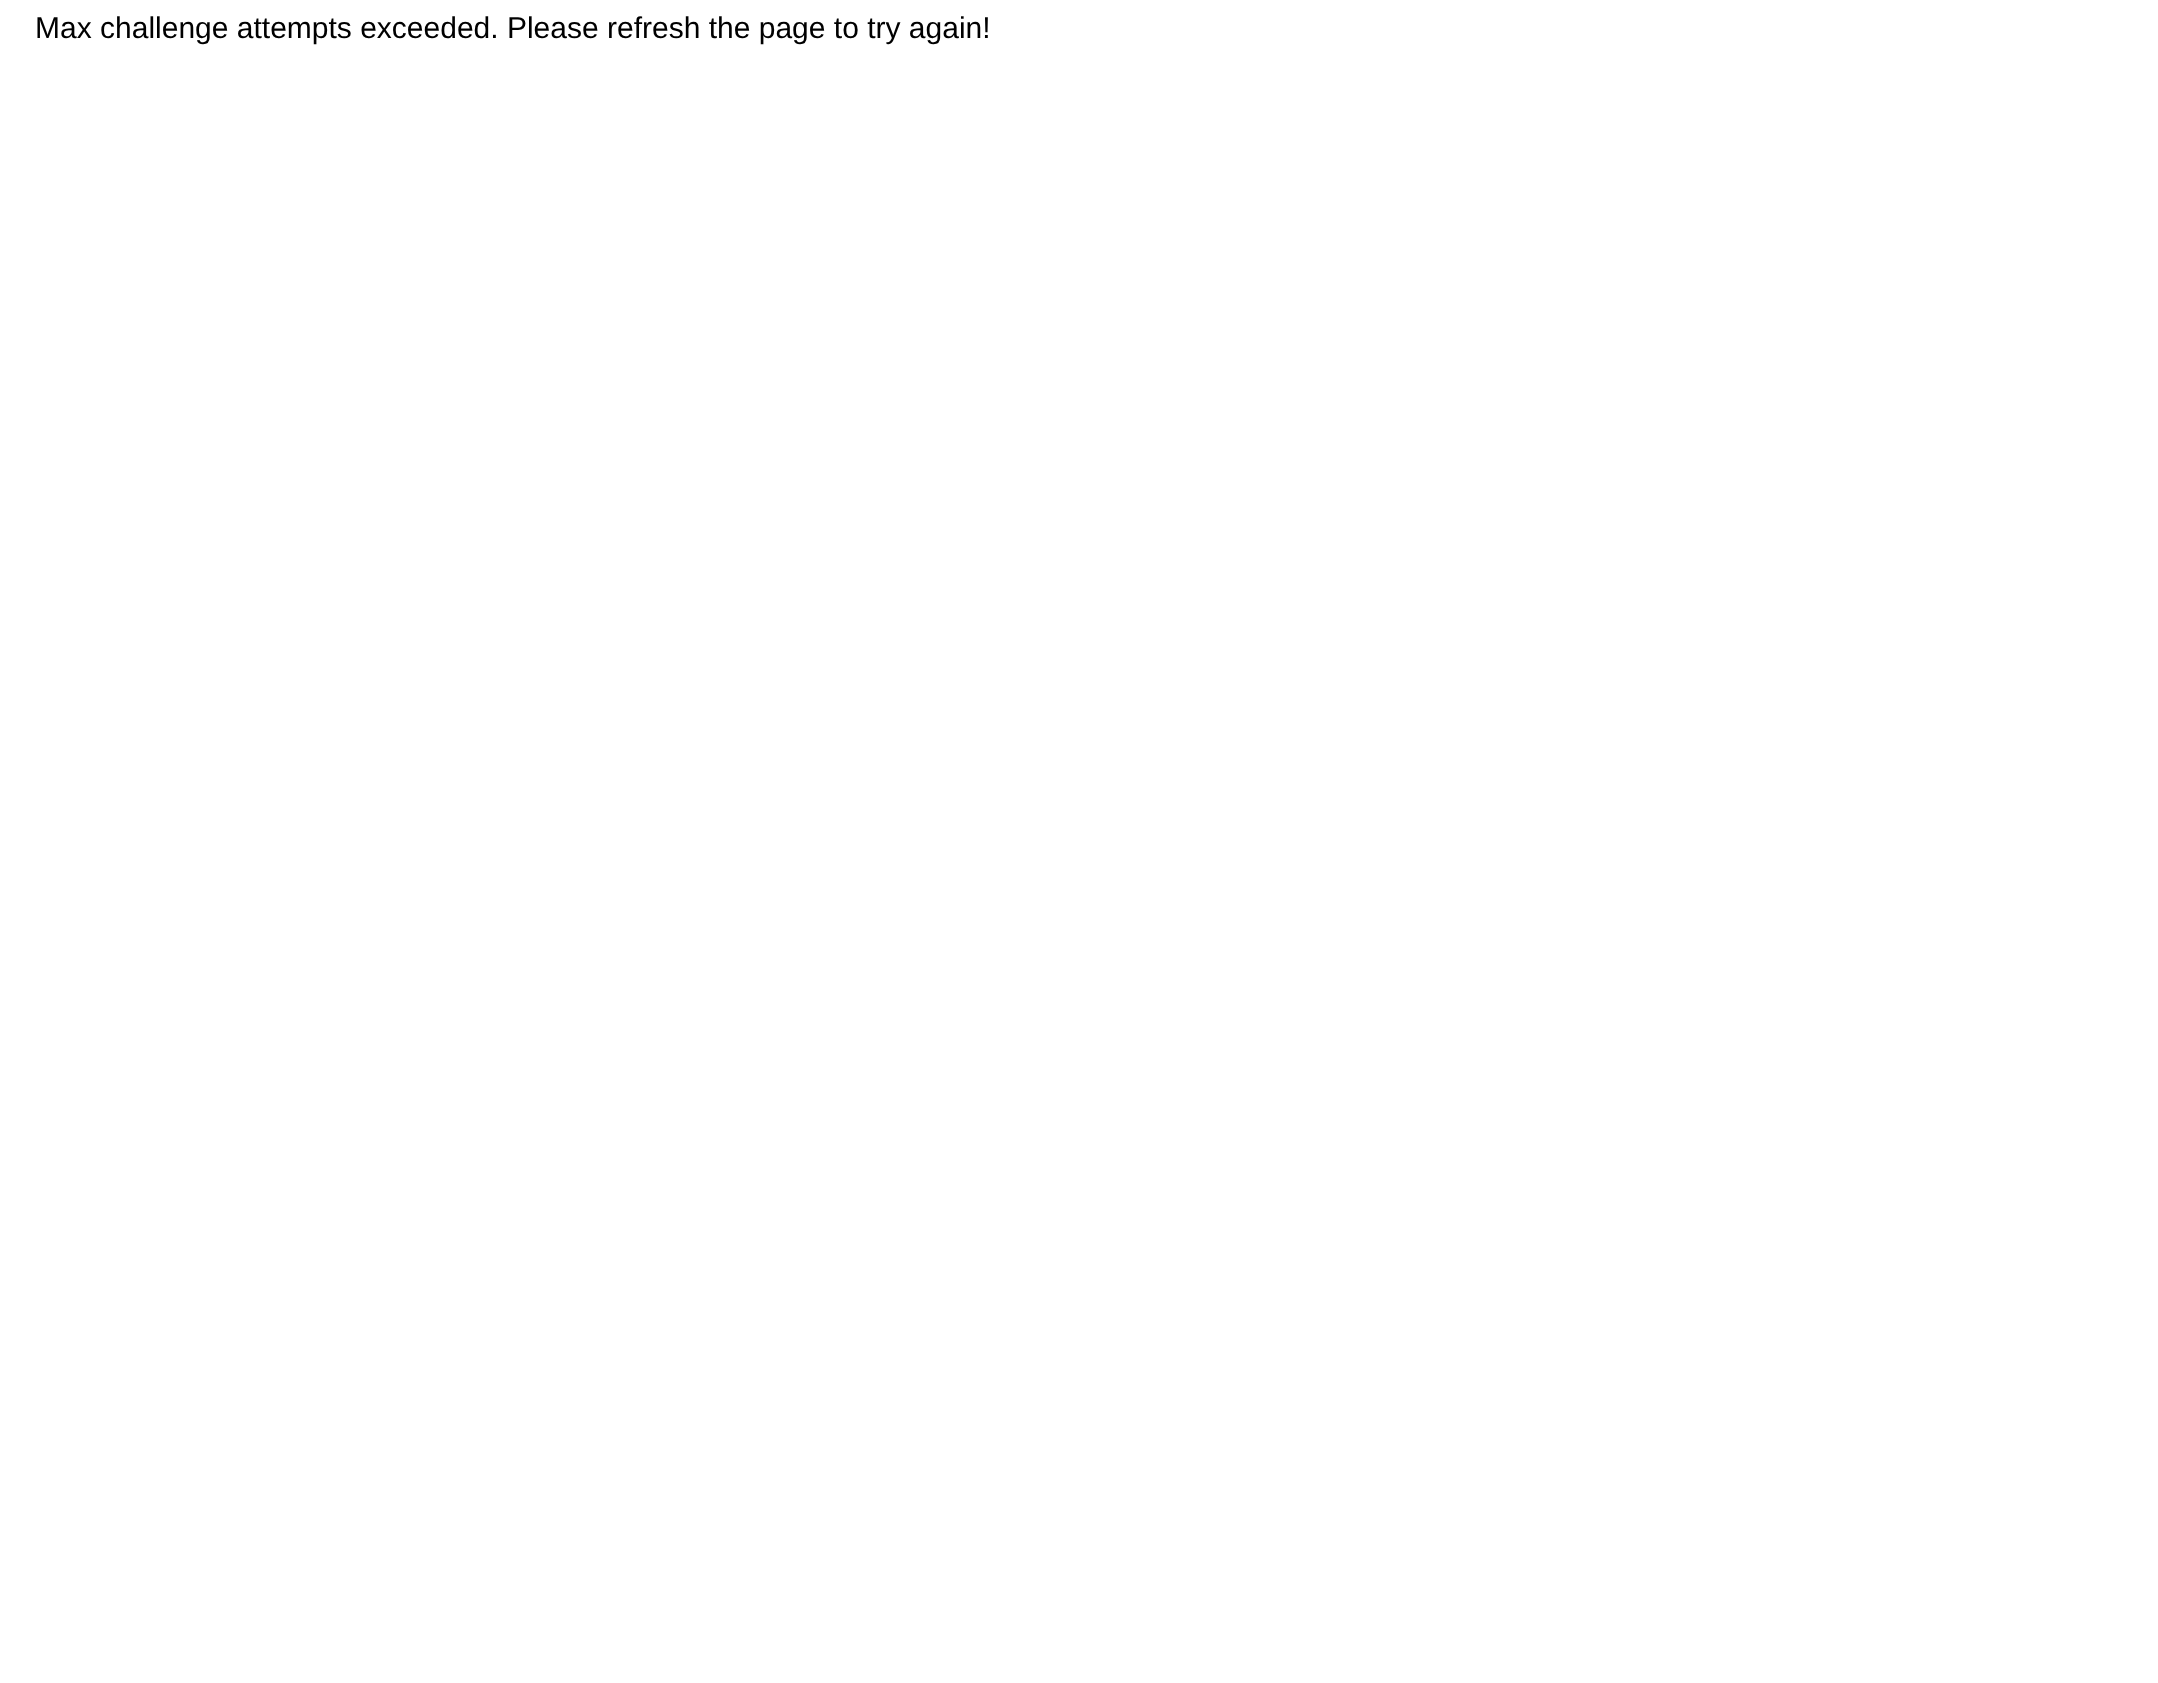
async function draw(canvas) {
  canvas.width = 2158;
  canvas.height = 1683;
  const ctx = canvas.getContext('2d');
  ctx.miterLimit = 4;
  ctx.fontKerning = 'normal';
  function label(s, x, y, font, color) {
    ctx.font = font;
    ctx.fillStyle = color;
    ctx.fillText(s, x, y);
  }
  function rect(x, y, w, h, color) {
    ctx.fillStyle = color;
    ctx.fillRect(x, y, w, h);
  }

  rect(0, 0, 2158, 1683, '#fff');
  label('Max challenge attempts exceeded. Please refresh the page to try again!', 35, 38, '30px Liberation Sans', '#000');
}

draw(document.querySelector('canvas'));
